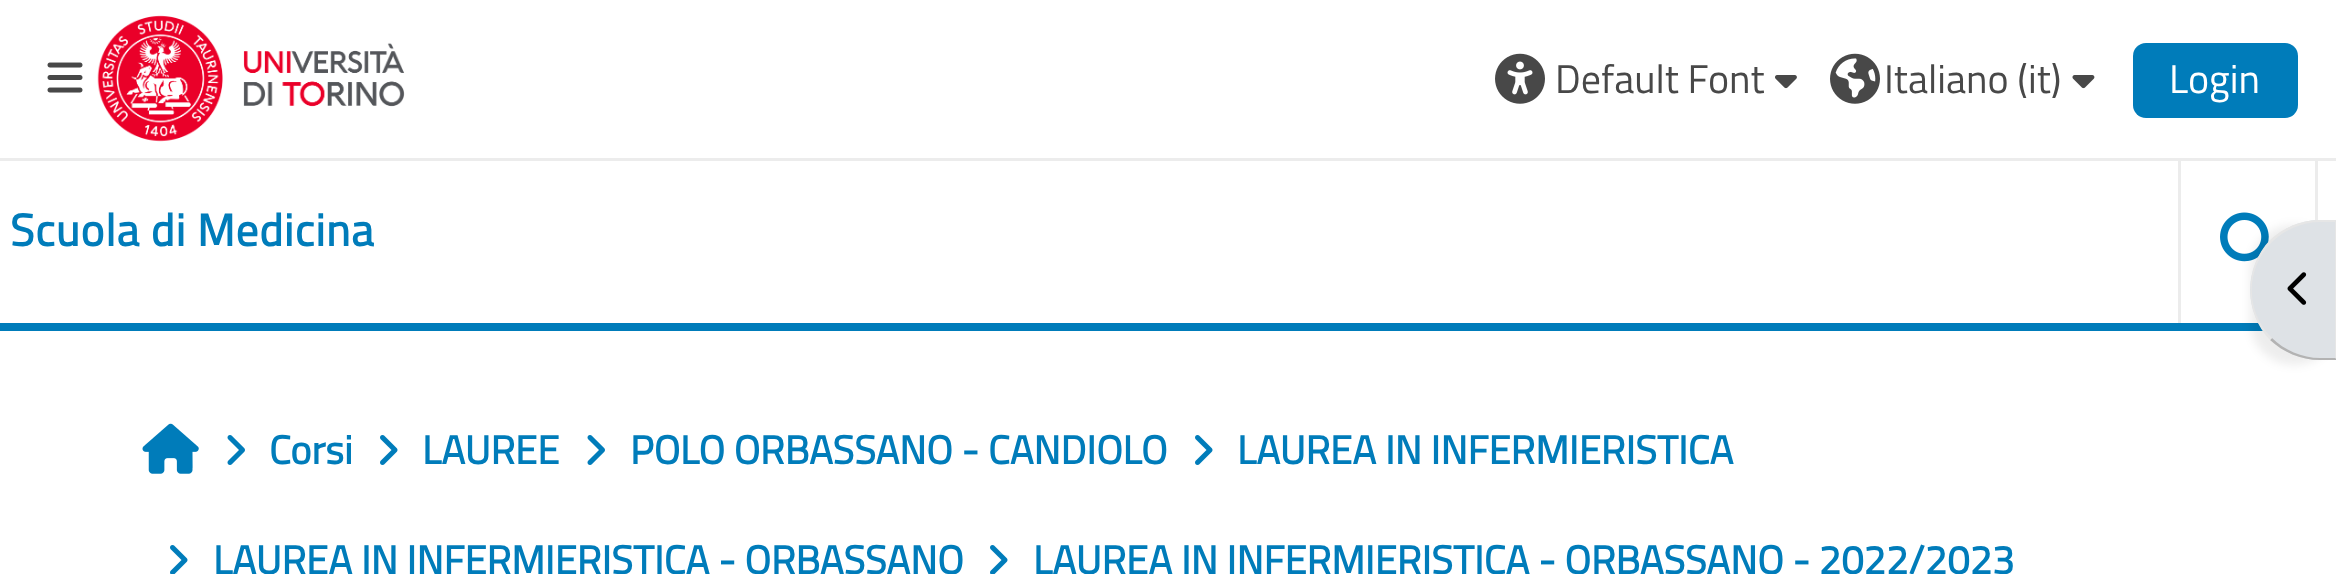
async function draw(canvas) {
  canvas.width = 2336;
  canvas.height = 574;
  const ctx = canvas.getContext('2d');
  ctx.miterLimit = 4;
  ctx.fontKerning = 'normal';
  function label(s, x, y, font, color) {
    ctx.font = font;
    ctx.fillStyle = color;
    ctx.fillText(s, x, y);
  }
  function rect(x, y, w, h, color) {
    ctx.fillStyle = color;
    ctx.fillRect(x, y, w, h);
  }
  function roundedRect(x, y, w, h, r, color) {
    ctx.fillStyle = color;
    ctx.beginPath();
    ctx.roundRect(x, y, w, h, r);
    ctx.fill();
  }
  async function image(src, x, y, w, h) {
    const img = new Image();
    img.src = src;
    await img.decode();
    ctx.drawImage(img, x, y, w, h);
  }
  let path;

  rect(0, 0, 2336, 574, '#fff');
  rect(0, 323, 2263, 8, '#007cba');
  rect(0, 158, 2336, 3, '#ececec');
  await image('assets/img1.png', 47, 62, 36, 31);
  await image('assets/img2.png', 97, 15, 308, 127);
  await image('assets/img3.png', 1495, 53, 50, 51);
  label('Default Font', 1555, 93, '40px Titillium Web', '#484848');
  await image('assets/img4.png', 1775, 75, 22, 14);
  await image('assets/img5.png', 1830, 53, 50, 51);
  label('Italiano (it)', 1884, 93, '40px Titillium Web', '#484848');
  await image('assets/img6.png', 2072, 75, 23, 14);
  roundedRect(2133, 43, 165, 75, 13, '#007cba');
  label('Login', 2169, 93, '40px Titillium Web', '#fff');
  ctx.letterSpacing = '0.9px';
  label('Scuola di Medicina', 10, 246, 'bold 45px Titillium Web', '#007cba');
  rect(2315, 160, 3, 61, '#ececec');
  rect(2178, 160, 3, 163, '#ececec');
  await image('assets/img7.png', 2220, 212, 49, 50);
  ctx.fillStyle = '#00000012';
  ctx.filter = 'blur(5px)';
  ctx.beginPath();
  ctx.roundRect(2250, 225, 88, 140, 70);
  ctx.fill();
  ctx.filter = 'none';
  ctx.fillStyle = '#dee2e6';
  path = new Path2D('M2320 220H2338V360H2320C2281.5 360 2250 328.5 2250 290C2250 251.5 2281.5 220 2320 220Z');
  ctx.fill(path);
  ctx.fillStyle = '#e6e6e6';
  path = new Path2D('M2320 220C2300 220 2283 228 2270 240L2272 242C2284 230 2302 222 2320 222H2335L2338 220Z');
  ctx.fill(path);
  path = new Path2D('M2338 220V360L2335 358V222Z');
  ctx.fill(path);
  ctx.fillStyle = '#b3b3b3';
  path = new Path2D('M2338 360L2335 358H2320C2302 358 2284 350 2272 338L2270 340C2283 352 2300 360 2320 360Z');
  ctx.fill(path);
  ctx.fillStyle = '#e6e6e6';
  path = new Path2D('M2270 340C2244 313 2244 267 2270 240L2272 242C2245 269 2245 311 2272 338Z');
  ctx.fill(path);
  await image('assets/img8.png', 2287, 272, 20, 33);
  await image('assets/img9.png', 142, 423, 57, 51);
  await image('assets/img10.png', 227, 435, 18, 30);
  ctx.letterSpacing = '0px';
  label('Corsi', 269, 464, 'bold 40px Titillium Web', '#007cba');
  await image('assets/img11.png', 380, 435, 18, 30);
  label('LAUREE', 422, 464, 'bold 40px Titillium Web', '#007cba');
  await image('assets/img10.png', 587, 435, 18, 30);
  label('POLO ORBASSANO - CANDIOLO', 630, 464, 'bold 40px Titillium Web', '#007cba');
  await image('assets/img11.png', 1195, 435, 18, 30);
  label('LAUREA IN INFERMIERISTICA', 1237, 464, 'bold 40px Titillium Web', '#007cba');
  await image('assets/img12.png', 170, 545, 18, 29);
  label('LAUREA IN INFERMIERISTICA - ORBASSANO', 213, 574, 'bold 40px Titillium Web', '#007cba');
  await image('assets/img12.png', 990, 545, 18, 29);
  label('LAUREA IN INFERMIERISTICA - ORBASSANO - 2022/2023', 1033, 574, 'bold 40px Titillium Web', '#007cba');
}

draw(document.querySelector('canvas'));
